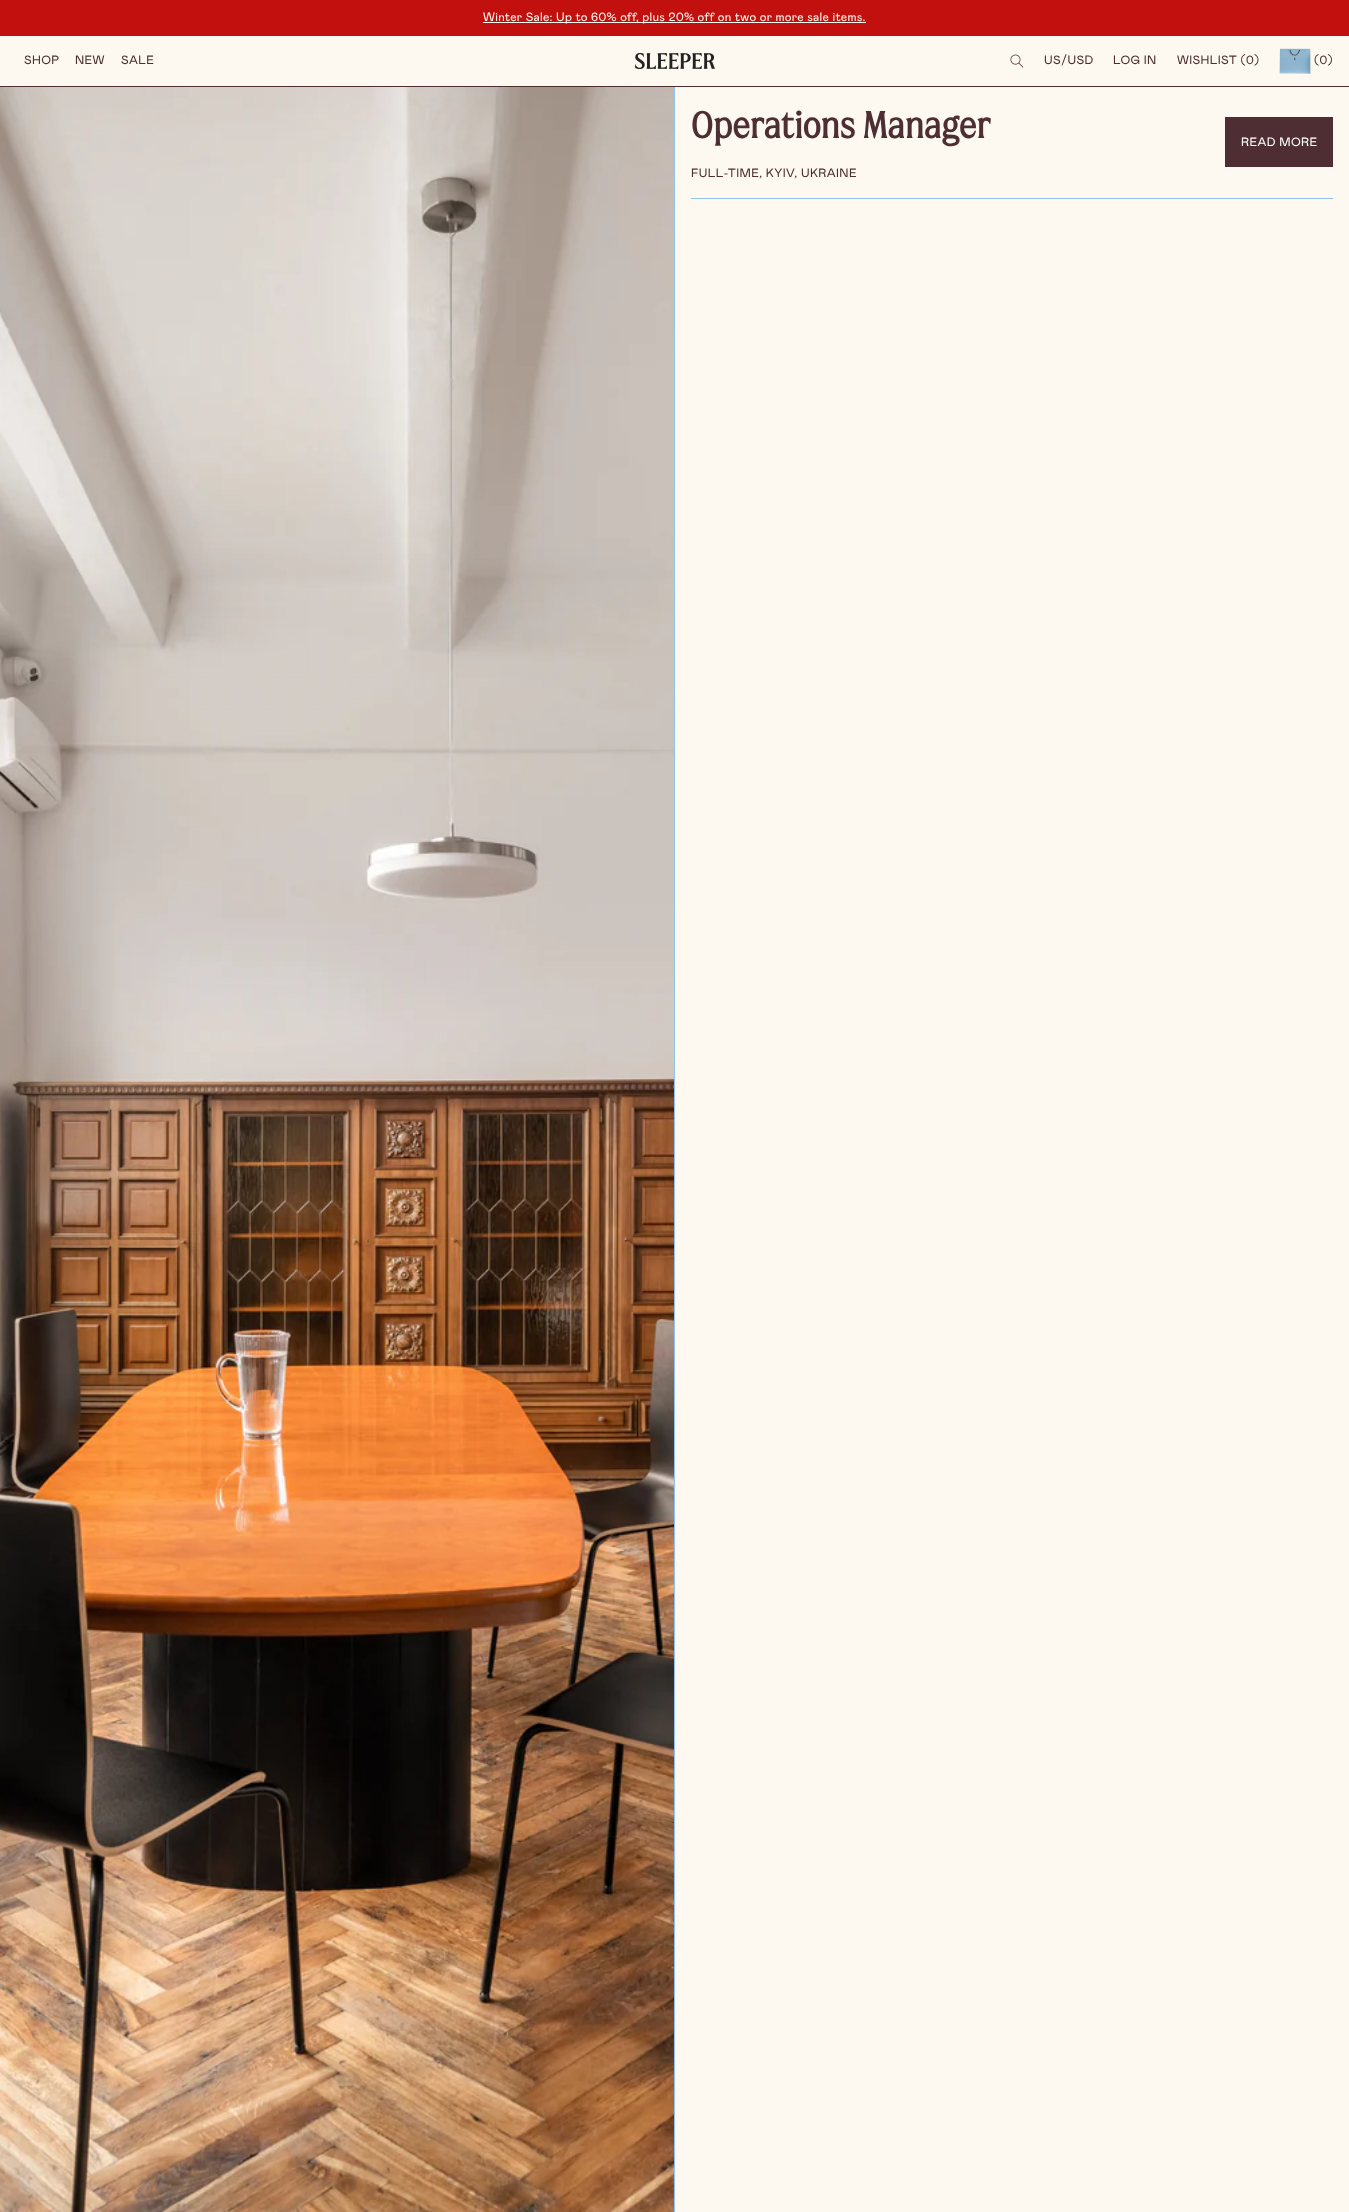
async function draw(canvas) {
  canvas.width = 1349;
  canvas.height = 2212;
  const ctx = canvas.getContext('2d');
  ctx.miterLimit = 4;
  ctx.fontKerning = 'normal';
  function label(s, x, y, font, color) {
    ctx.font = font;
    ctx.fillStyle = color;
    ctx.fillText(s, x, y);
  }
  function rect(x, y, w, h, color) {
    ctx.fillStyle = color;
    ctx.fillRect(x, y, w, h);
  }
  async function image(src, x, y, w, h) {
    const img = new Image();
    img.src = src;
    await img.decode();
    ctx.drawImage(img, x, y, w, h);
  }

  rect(0, 0, 1349, 2212, '#fdf9f0');
  rect(0, 0, 1349, 36, '#c1100d');
  rect(483, 22, 383, 1, '#fdf9f0');
  ctx.letterSpacing = '0.32px';
  label('Winter Sale: Up to 60% off, plus 20% off on two or more sale items.', 483, 21, '12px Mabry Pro', '#fdf9f0');
  rect(0, 86, 1349, 1, '#4e2e32');
  ctx.letterSpacing = '0.4px';
  label('SHOP', 24, 64, '12px Mabry Pro', '#4e2e32');
  label('NEW', 75, 64, '12px Mabry Pro', '#4e2e32');
  label('SALE', 121, 64, '12px Mabry Pro', '#4e2e32');
  await image('assets/img1.png', 635, 53, 80, 16);
  await image('assets/img2.png', 1010, 54, 14, 14);
  label('US/USD', 1044, 64, '12px Mabry Pro', '#4e2e32');
  label('LOG IN', 1113, 64, '12px Mabry Pro', '#4e2e32');
  label('WISHLIST (0)', 1177, 64, '12px Mabry Pro', '#4e2e32');
  await image('assets/img3.png', 1279, 48, 32, 26);
  label('(0)', 1314, 64, '12px Mabry Pro', '#4e2e32');
  rect(674, 87, 1, 2125, '#92c1ef');
  await image('assets/img4.png', 0, 87, 674, 2125);
  rect(691, 198, 642, 1, '#92c1ef');
  label('Operations Manager', 691, 138, 'bold 37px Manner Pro', '#4e2e32');
  label('FULL-TIME, KYIV, UKRAINE', 691, 177, '12px Mabry Pro', '#4e2e32');
  rect(1225, 117, 108, 50, '#4e2e32');
  label('READ MORE', 1241, 146, '12px Mabry Pro', '#fff');
}

draw(document.querySelector('canvas'));
